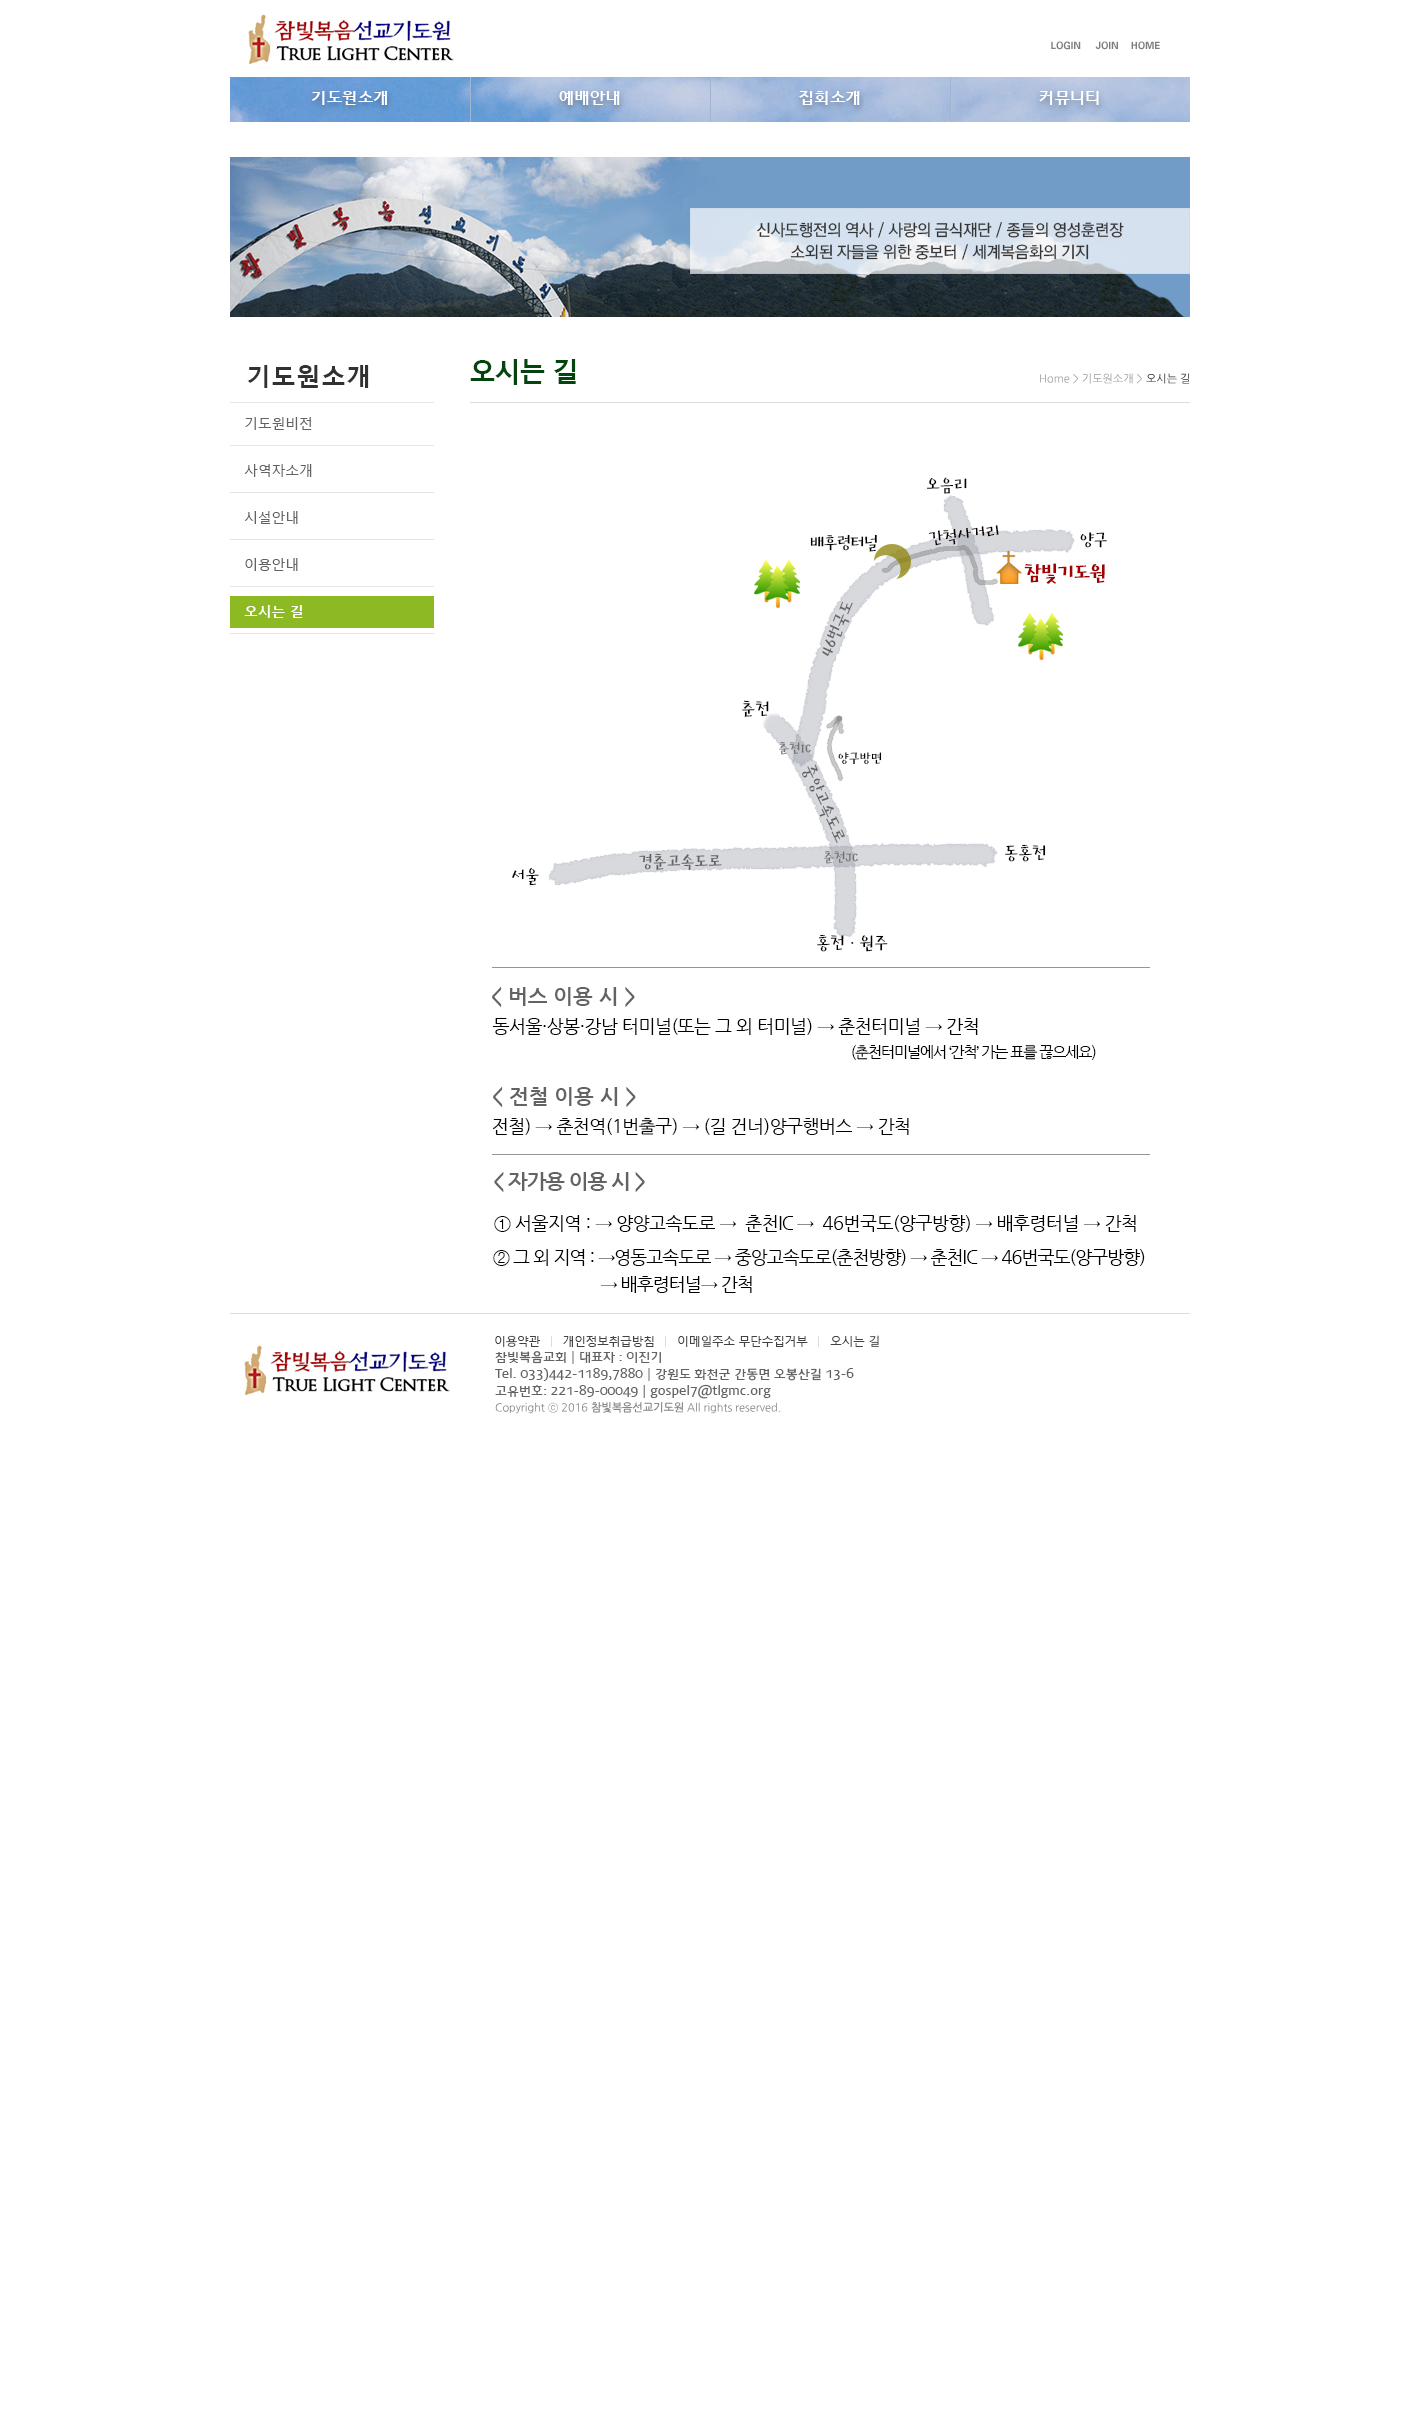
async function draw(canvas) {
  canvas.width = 1420;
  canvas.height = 2428;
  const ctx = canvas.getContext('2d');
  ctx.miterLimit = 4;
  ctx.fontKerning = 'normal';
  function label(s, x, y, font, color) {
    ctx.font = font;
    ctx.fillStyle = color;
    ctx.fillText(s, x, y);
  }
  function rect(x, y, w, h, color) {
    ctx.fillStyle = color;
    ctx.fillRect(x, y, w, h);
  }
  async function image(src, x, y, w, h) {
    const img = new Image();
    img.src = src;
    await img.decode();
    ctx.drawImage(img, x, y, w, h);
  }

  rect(0, 0, 1420, 2428, '#fff');
  await image('assets/img1.png', 244, 14, 210, 51);
  await image('assets/img2.png', 1051, 41, 30, 9);
  await image('assets/img3.png', 1095, 41, 23, 9);
  await image('assets/img4.png', 1131, 41, 29, 9);
  await image('assets/img5.png', 230, 77, 240, 45);
  await image('assets/img6.png', 470, 77, 240, 45);
  await image('assets/img7.png', 710, 77, 240, 45);
  await image('assets/img8.png', 950, 77, 240, 45);
  await image('assets/img9.png', 230, 157, 960, 160);
  await image('assets/img10.png', 230, 365, 204, 38);
  await image('assets/img11.png', 230, 417, 204, 29);
  await image('assets/img12.png', 230, 464, 204, 29);
  await image('assets/img13.png', 230, 511, 204, 29);
  await image('assets/img14.png', 230, 558, 204, 29);
  await image('assets/img15.png', 230, 596, 204, 38);
  rect(470, 402, 720, 1, '#dcdcdc');
  await image('assets/img16.png', 470, 359, 106, 26);
  label('Home > 기도원소개 >', 1039, 382, '11px NanumGothic', '#a0a0a0');
  label('오시는 길', 1146, 382, '11px NanumGothic', '#313131');
  await image('assets/img17.png', 492, 477, 658, 816);
  rect(230, 1313, 960, 1, '#dcdcdc');
  await image('assets/img1.png', 240, 1345, 210, 51);
  await image('assets/img18.png', 495, 1335, 57, 12);
  await image('assets/img19.png', 563, 1336, 103, 11);
  await image('assets/img20.png', 678, 1335, 141, 12);
  await image('assets/img21.png', 830, 1335, 49, 12);
  await image('assets/img22.png', 495, 1351, 359, 48);
  label('Copyright ⓒ 2016', 495, 1411, '11px NanumGothic', '#868686');
  label('참빛복음선교기도원', 591, 1411, 'bold 11px NanumGothic', '#868686');
  label('All rights reserved.', 687, 1411, '11px NanumGothic', '#868686');
}

draw(document.querySelector('canvas'));
